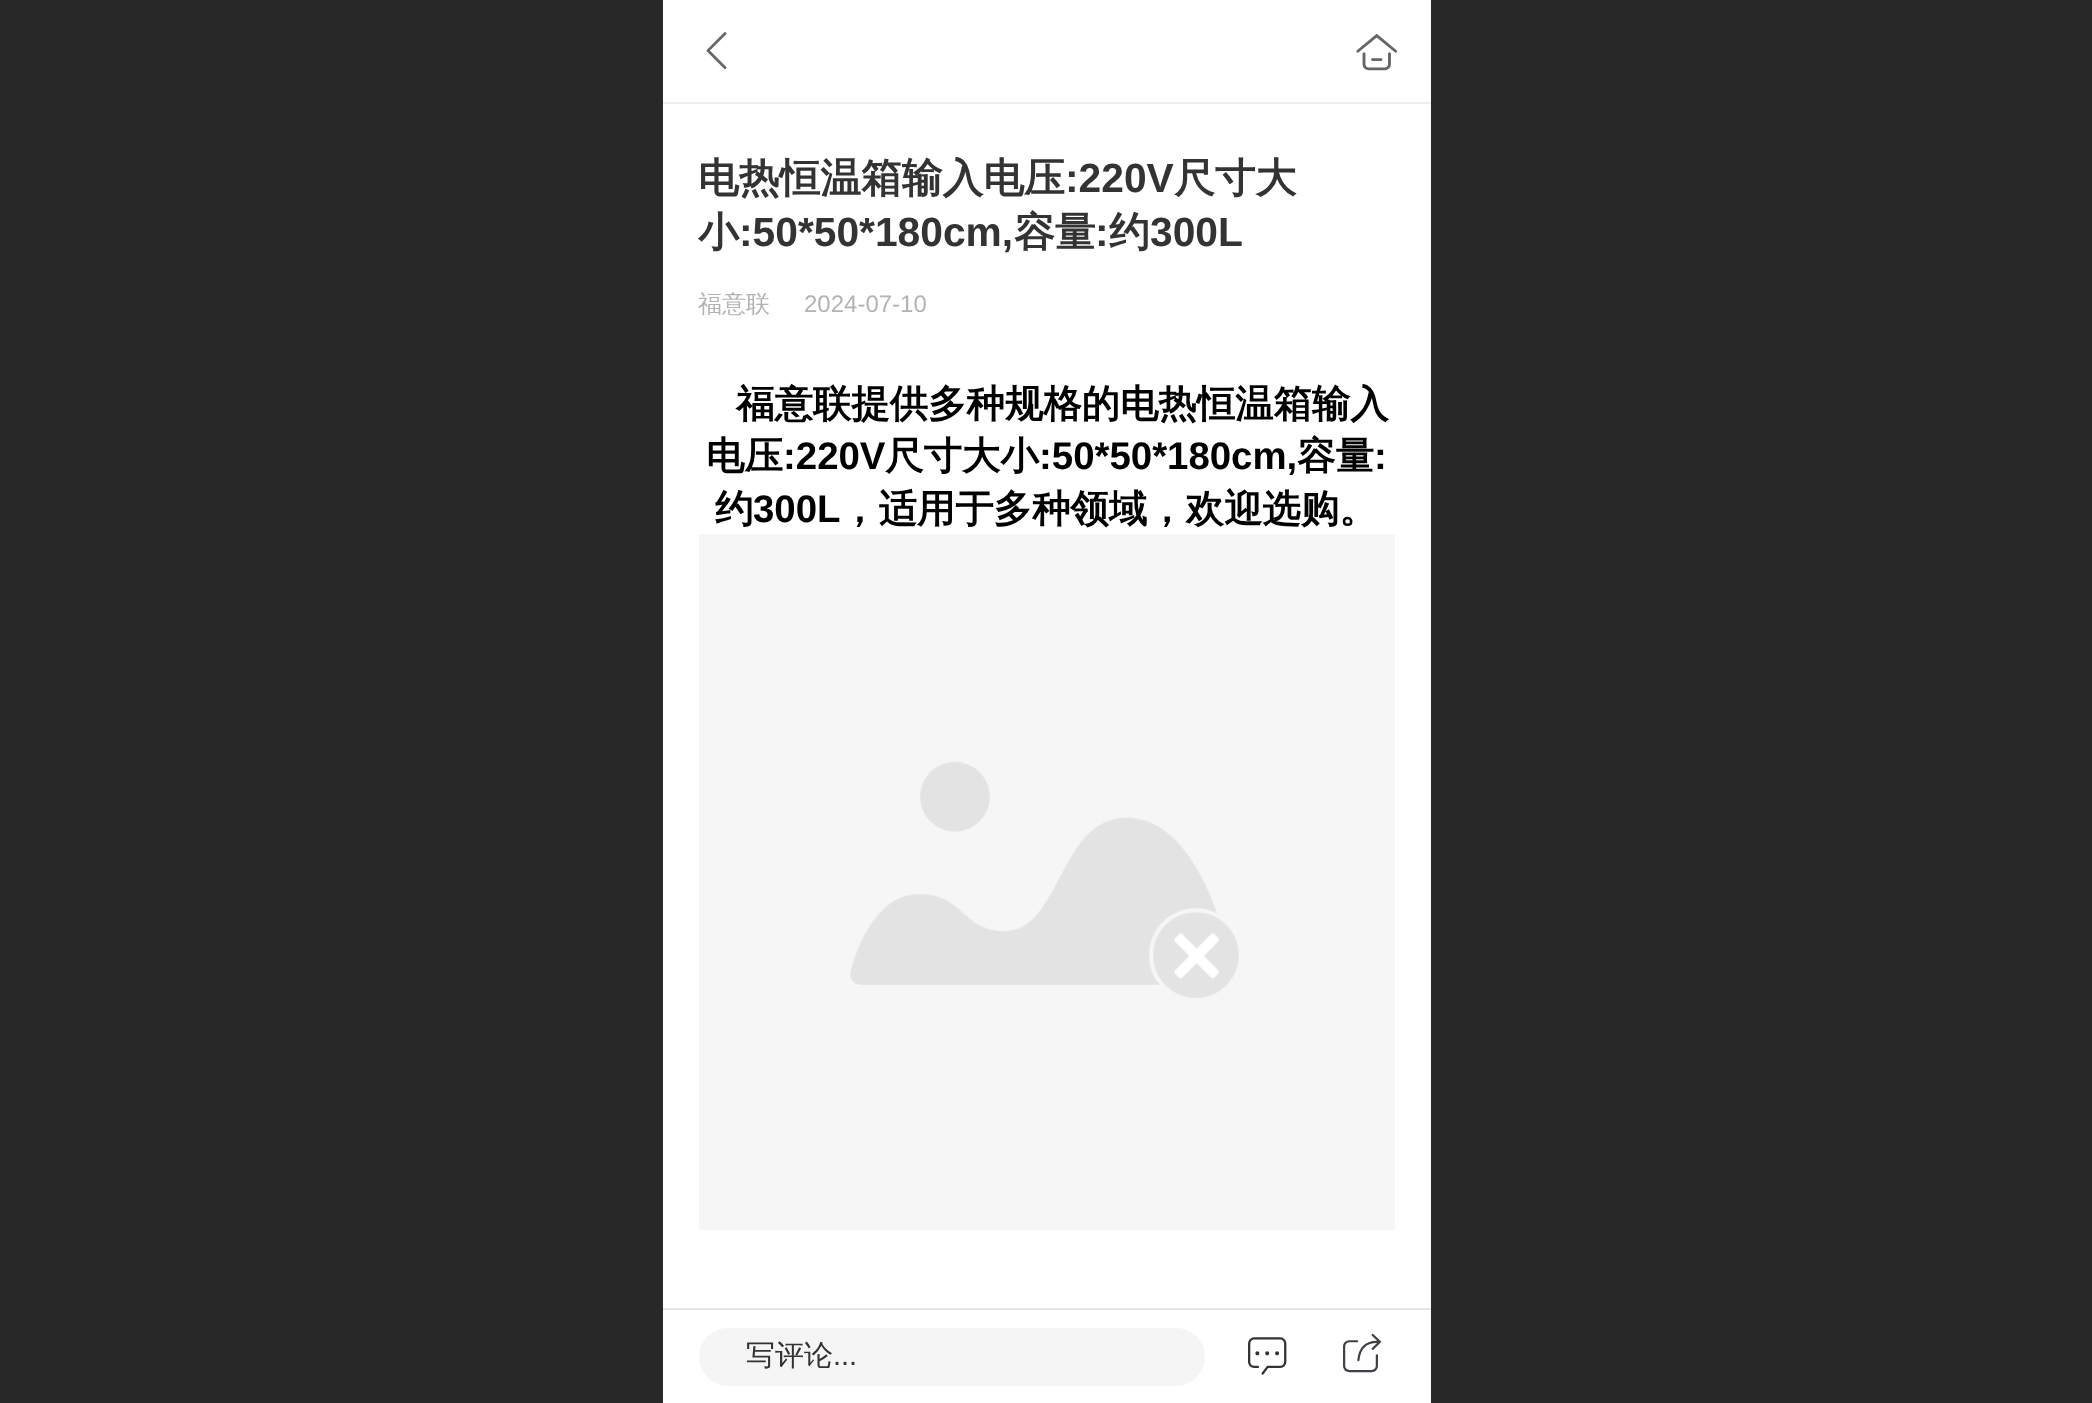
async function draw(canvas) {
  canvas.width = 2092;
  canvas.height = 1403;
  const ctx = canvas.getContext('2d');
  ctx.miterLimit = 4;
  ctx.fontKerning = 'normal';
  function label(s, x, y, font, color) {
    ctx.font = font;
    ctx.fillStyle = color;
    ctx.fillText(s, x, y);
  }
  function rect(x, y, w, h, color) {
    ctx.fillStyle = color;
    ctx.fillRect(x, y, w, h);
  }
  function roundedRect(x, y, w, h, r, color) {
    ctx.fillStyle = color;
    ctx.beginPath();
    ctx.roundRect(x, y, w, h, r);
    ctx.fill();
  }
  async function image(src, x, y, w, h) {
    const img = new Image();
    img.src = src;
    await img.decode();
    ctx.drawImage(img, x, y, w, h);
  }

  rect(0, 0, 2092, 1403, '#fff');
  rect(0, 0, 663, 1403, '#282828');
  rect(663, 102, 768, 2, '#eee');
  label('򰊔', 698, 66, '37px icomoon', '#666');
  label('򰌓', 1356, 69, '40.75px icomoon', '#666');
  label('电热恒温箱输入电压', 698, 192, 'bold 40.75px WenQuanYi Zen Hei', '#333');
  label(':220V', 1065, 192, 'bold 40.75px Liberation Sans', '#333');
  label('尺寸大', 1174, 192, 'bold 40.75px WenQuanYi Zen Hei', '#333');
  label('小', 698, 246, 'bold 40.75px WenQuanYi Zen Hei', '#333');
  label(':50*50*180cm,', 739, 246, 'bold 40.75px Liberation Sans', '#333');
  label('容量', 1014, 246, 'bold 40.75px WenQuanYi Zen Hei', '#333');
  label(':', 1095, 246, 'bold 40.75px Liberation Sans', '#333');
  label('约', 1109, 246, 'bold 40.75px WenQuanYi Zen Hei', '#333');
  label('300L', 1150, 246, 'bold 40.75px Liberation Sans', '#333');
  label('福意联', 698, 312, '500 24px WenQuanYi Zen Hei', '#b3b3b3');
  label('2024-07-10', 804, 312, '24px Liberation Sans', '#b3b3b3');
  label('福意联提供多种规格的电热恒温箱输入', 736, 417, 'bold 38.4px WenQuanYi Zen Hei', '#000');
  label('电压', 706, 469, 'bold 38.4px WenQuanYi Zen Hei', '#000');
  label(':220V', 783, 469, 'bold 38.4px Liberation Sans', '#000');
  label('尺寸大小', 885, 469, 'bold 38.4px WenQuanYi Zen Hei', '#000');
  label(':50*50*180cm,', 1039, 469, 'bold 38.4px Liberation Sans', '#000');
  label('容量', 1297, 469, 'bold 38.4px WenQuanYi Zen Hei', '#000');
  label(':', 1374, 469, 'bold 38.4px Liberation Sans', '#000');
  label('约', 715, 522, 'bold 38.4px WenQuanYi Zen Hei', '#000');
  label('300L', 753, 522, 'bold 38.4px Liberation Sans', '#000');
  label('，适用于多种领域，欢迎选购。', 840, 522, 'bold 38.4px WenQuanYi Zen Hei', '#000');
  await image('assets/img1.png', 699, 534, 696, 696);
  rect(663, 1308, 768, 2, '#e5e5e5');
  roundedRect(699, 1328, 506, 58, 29, '#f5f5f5');
  label('写评论', 746, 1365, '500 29px WenQuanYi Zen Hei', '#333');
  label('...', 833, 1365, '29px Liberation Sans', '#333');
  label('򰌇', 1248, 1372, '38.4px icomoon', '#333');
  label('򰌐', 1343, 1369, '38.4px icomoon', '#3c414a');
  rect(1431, 0, 661, 1403, '#282828');
}

draw(document.querySelector('canvas'));
